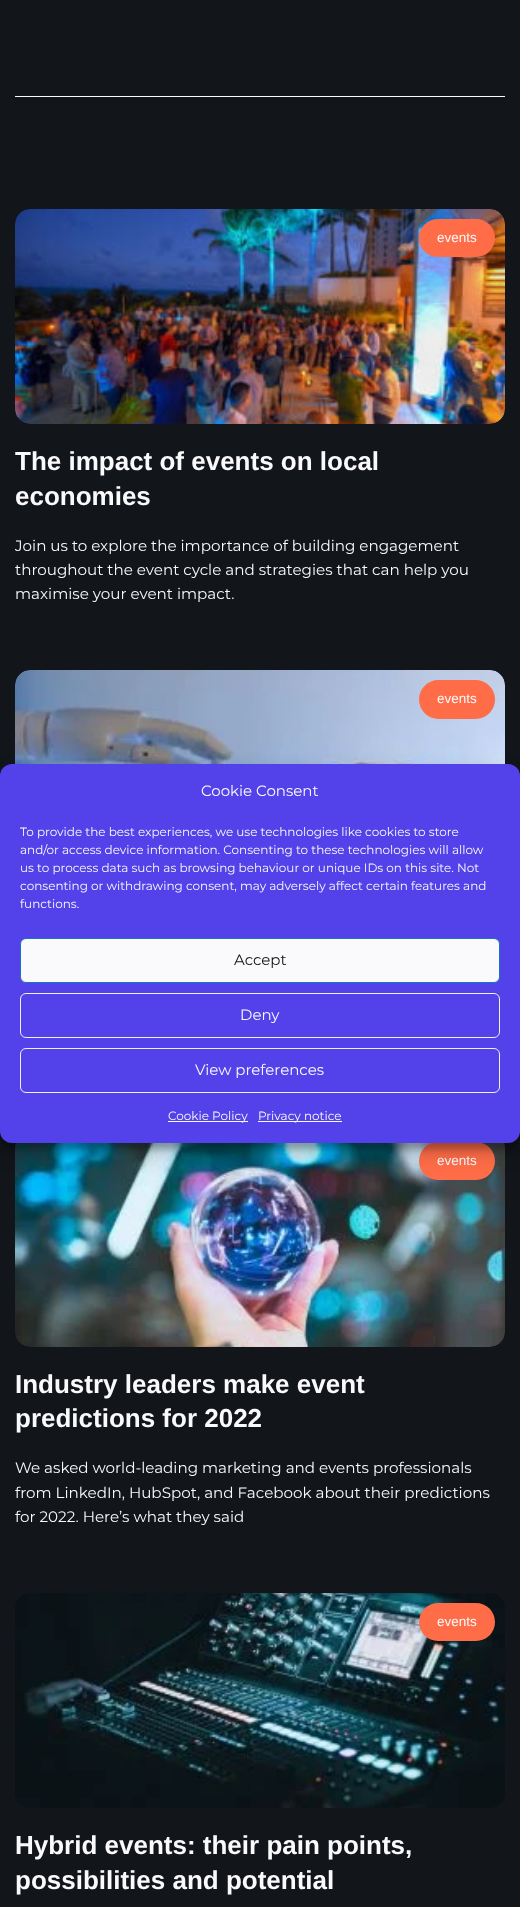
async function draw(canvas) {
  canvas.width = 520;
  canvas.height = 1907;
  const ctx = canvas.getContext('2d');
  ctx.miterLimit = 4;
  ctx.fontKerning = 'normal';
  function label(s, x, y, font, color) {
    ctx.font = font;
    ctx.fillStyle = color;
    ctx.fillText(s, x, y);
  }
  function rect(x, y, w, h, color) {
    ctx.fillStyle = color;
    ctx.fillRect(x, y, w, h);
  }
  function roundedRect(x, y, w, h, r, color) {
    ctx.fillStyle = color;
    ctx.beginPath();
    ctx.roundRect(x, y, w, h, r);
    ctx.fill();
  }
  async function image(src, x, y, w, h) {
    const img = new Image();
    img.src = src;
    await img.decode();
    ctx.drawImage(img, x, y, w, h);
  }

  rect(0, 0, 520, 1907, '#12151a');
  rect(15, 96, 490, 1, '#fafafc');
  await image('assets/img1.png', 15, 209, 490, 215);
  roundedRect(419, 219, 76, 38, 19, '#ff6d48');
  label('events', 437, 242, '13.5px Liberation Sans', '#fafafc');
  label('The impact of events on local', 15, 470, 'bold 26px Liberation Sans', '#fafafc');
  label('economies', 15, 505, 'bold 26px Liberation Sans', '#fafafc');
  label('Join us to explore the importance of building engagement', 15, 551, '15.15px Montserrat', '#fafafc');
  label('throughout the event cycle and strategies that can help you', 15, 575, '15.15px Montserrat', '#fafafc');
  label('maximise your event impact.', 15, 599, '15.15px Montserrat', '#fafafc');
  await image('assets/img2.png', 15, 670, 490, 94);
  roundedRect(419, 680, 76, 39, 19.5, '#ff6d48');
  label('events', 437, 703, '13.5px Liberation Sans', '#fafafc');
  await image('assets/img3.png', 15, 1143, 490, 204);
  roundedRect(419, 1142, 76, 38, 19, '#ff6d48');
  label('events', 437, 1165, '13.5px Liberation Sans', '#fafafc');
  label('Industry leaders make event', 15, 1393, 'bold 26px Liberation Sans', '#fafafc');
  label('predictions for 2022', 15, 1427, 'bold 26px Liberation Sans', '#fafafc');
  label('We asked world-leading marketing and events professionals', 15, 1473, '15.15px Montserrat', '#fafafc');
  label('from LinkedIn, HubSpot, and Facebook about their predictions', 15, 1498, '15.15px Montserrat', '#fafafc');
  label('for 2022. Here’s what they said', 15, 1522, '15.15px Montserrat', '#fafafc');
  await image('assets/img4.png', 15, 1593, 490, 215);
  roundedRect(419, 1603, 76, 38, 19, '#ff6d48');
  label('events', 437, 1626, '13.5px Liberation Sans', '#fafafc');
  label('Hybrid events: their pain points,', 15, 1854, 'bold 26px Liberation Sans', '#fafafc');
  label('possibilities and potential', 15, 1889, 'bold 26px Liberation Sans', '#fafafc');
  ctx.fillStyle = '#0000003b';
  ctx.filter = 'blur(3px)';
  ctx.beginPath();
  ctx.roundRect(0, 770, 520, 379, 12);
  ctx.fill();
  ctx.filter = 'none';
  ctx.fillStyle = '#00000030';
  ctx.filter = 'blur(10px)';
  ctx.beginPath();
  ctx.roundRect(0, 774, 520, 379, 12);
  ctx.fill();
  ctx.filter = 'none';
  roundedRect(0, 764, 520, 379, 12, '#5342ea');
  label('Cookie Consent', 201, 796, '15px Montserrat', '#fafafc');
  label('To provide the best experiences, we use technologies like cookies to store', 20, 836, '12px Montserrat', '#fafafc');
  label('and/or access device information. Consenting to these technologies will allow', 20, 854, '12px Montserrat', '#fafafc');
  label('us to process data such as browsing behaviour or unique IDs on this site. Not', 20, 872, '12px Montserrat', '#fafafc');
  label('consenting or withdrawing consent, may adversely affect certain features and', 20, 890, '12px Montserrat', '#fafafc');
  label('functions.', 20, 908, '12px Montserrat', '#fafafc');
  ctx.beginPath();
  ctx.roundRect(20.5, 938.5, 479, 44, 5.5);
  ctx.fill();
  ctx.strokeStyle = '#1e73be';
  ctx.stroke();
  label('Accept', 234, 965, '15px Montserrat', '#12151a');
  ctx.beginPath();
  ctx.roundRect(20.5, 993.5, 479, 44, 5.5);
  ctx.strokeStyle = '#f2f2f2';
  ctx.stroke();
  label('Deny', 240, 1020, '15px Montserrat', '#fafafc');
  ctx.beginPath();
  ctx.roundRect(20.5, 1048.5, 479, 44, 5.5);
  ctx.stroke();
  label('View preferences', 195, 1075, '15px Montserrat', '#fafafc');
  rect(168, 1121, 80, 1, '#fafafc');
  label('Cookie Policy', 168, 1120, '12px Montserrat', '#fafafc');
  rect(258, 1121, 84, 1, '#fafafc');
  label('Privacy notice', 258, 1120, '12px Montserrat', '#fafafc');
}

draw(document.querySelector('canvas'));
